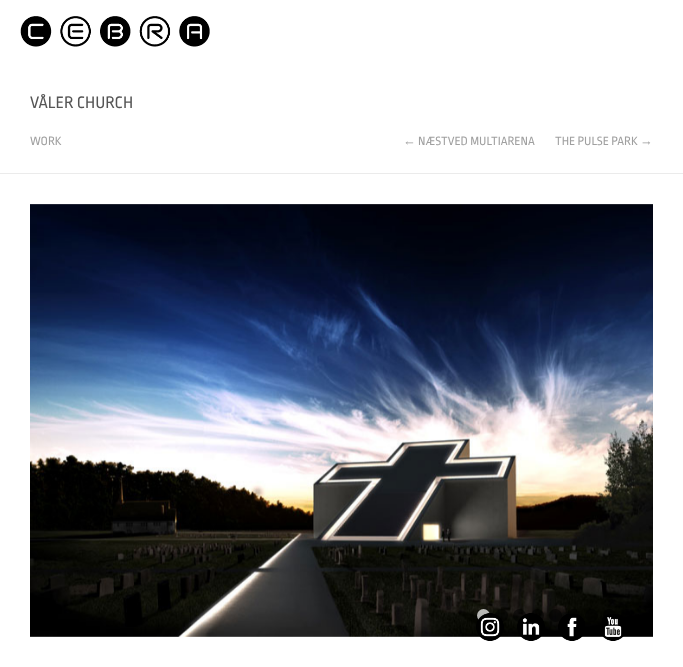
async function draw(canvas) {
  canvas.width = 683;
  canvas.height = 667;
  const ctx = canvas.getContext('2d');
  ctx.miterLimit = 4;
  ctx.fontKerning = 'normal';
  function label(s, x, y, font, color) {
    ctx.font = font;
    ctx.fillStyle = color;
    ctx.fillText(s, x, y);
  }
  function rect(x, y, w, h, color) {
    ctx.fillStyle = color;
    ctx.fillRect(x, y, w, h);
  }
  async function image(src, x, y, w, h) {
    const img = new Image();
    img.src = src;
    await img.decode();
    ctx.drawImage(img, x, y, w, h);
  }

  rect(0, 0, 683, 667, '#fff');
  await image('assets/img1.png', 20, 16, 190, 31);
  rect(0, 173, 683, 1, '#ebebeb');
  label('VÅLER CHURCH', 30, 108, '17.5px Ropa Sans', '#555');
  label('WORK', 30, 145, '12.75px Ropa Sans', '#a0a0a0');
  label('←', 403, 145, '12.75px Liberation Serif', '#a0a0a0');
  label('NÆSTVED MULTIARENA', 418, 145, '12.75px Ropa Sans', '#a0a0a0');
  label('THE PULSE PARK', 555, 145, '12.75px Ropa Sans', '#a0a0a0');
  label('→', 640, 145, '12.75px Liberation Serif', '#a0a0a0');
  await image('assets/img2.png', 30, 204, 623, 433);
  ctx.fillStyle = '#ffffffb3';
  ctx.beginPath();
  ctx.arc(483.5, 615.5, 6.5, 0, 2 * Math.PI);
  ctx.fill();
  ctx.fillStyle = '#00000080';
  ctx.beginPath();
  ctx.arc(501.5, 615.5, 6.5, 0, 2 * Math.PI);
  ctx.fill();
  ctx.beginPath();
  ctx.arc(519.5, 615.5, 6.5, 0, 2 * Math.PI);
  ctx.fill();
  ctx.beginPath();
  ctx.arc(537.5, 615.5, 6.5, 0, 2 * Math.PI);
  ctx.fill();
  ctx.beginPath();
  ctx.arc(555.5, 615.5, 6.5, 0, 2 * Math.PI);
  ctx.fill();
  ctx.beginPath();
  ctx.arc(573.5, 615.5, 6.5, 0, 2 * Math.PI);
  ctx.fill();
  ctx.beginPath();
  ctx.arc(591.5, 615.5, 6.5, 0, 2 * Math.PI);
  ctx.fill();
  ctx.beginPath();
  ctx.arc(609.5, 615.5, 6.5, 0, 2 * Math.PI);
  ctx.fill();
  ctx.beginPath();
  ctx.arc(627.5, 615.5, 6.5, 0, 2 * Math.PI);
  ctx.fill();
  await image('assets/img3.png', 476, 613, 28, 28);
  await image('assets/img4.png', 517, 613, 28, 28);
  await image('assets/img5.png', 558, 614, 27, 27);
  await image('assets/img6.png', 602, 614, 22, 27);
}

draw(document.querySelector('canvas'));
